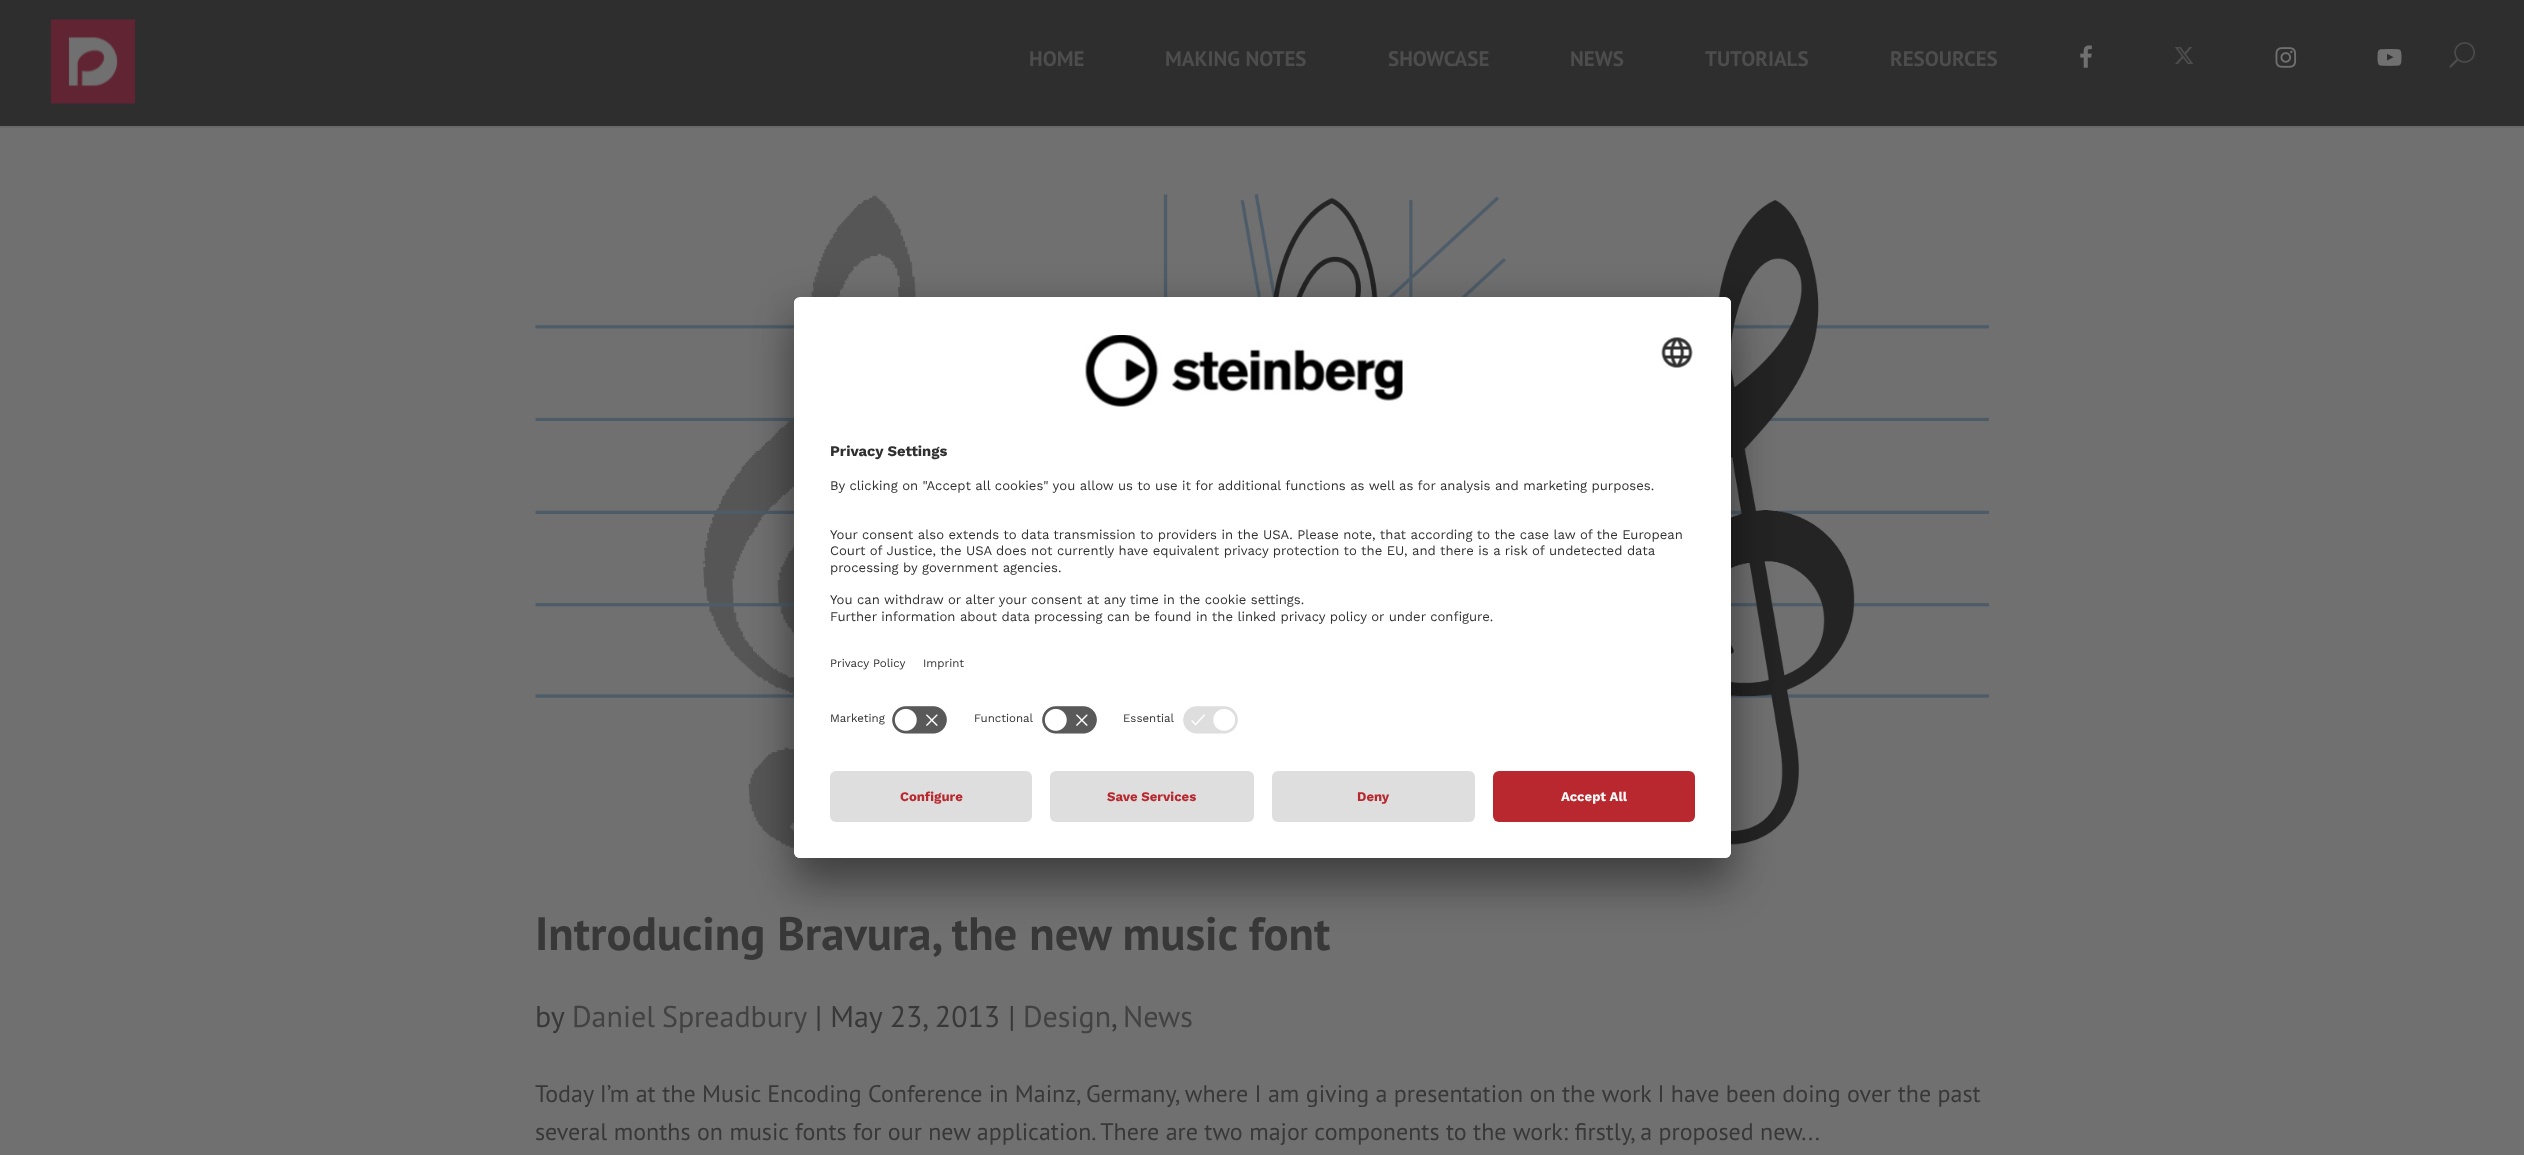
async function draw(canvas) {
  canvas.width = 2524;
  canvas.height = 1155;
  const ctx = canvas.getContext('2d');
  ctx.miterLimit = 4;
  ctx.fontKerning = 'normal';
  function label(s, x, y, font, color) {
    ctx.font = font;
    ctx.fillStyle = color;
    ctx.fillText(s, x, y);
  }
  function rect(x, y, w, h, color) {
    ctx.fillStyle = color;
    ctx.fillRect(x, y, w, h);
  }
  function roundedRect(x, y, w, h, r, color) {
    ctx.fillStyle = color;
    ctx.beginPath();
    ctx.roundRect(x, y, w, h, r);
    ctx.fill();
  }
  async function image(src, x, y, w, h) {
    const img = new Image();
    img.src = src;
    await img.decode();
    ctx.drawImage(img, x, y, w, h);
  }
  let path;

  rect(0, 0, 2524, 1155, '#707070');
  ctx.fillStyle = '#696969';
  path = new Path2D('M0 126V128H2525V2H2524V126Z');
  ctx.fill(path);
  rect(0, 0, 2524, 126, '#2e2e2e');
  await image('assets/img1.png', 51, 19, 84, 85);
  label('HOME', 1029, 66, 'bold 21px PT Sans', '#4d4d4d');
  label('MAKING NOTES', 1165, 66, 'bold 21px PT Sans', '#4d4d4d');
  label('SHOWCASE', 1388, 66, 'bold 21px PT Sans', '#4d4d4d');
  label('NEWS', 1570, 66, 'bold 21px PT Sans', '#4d4d4d');
  label('TUTORIALS', 1705, 66, 'bold 21px PT Sans', '#4d4d4d');
  label('RESOURCES', 1890, 66, 'bold 21px PT Sans', '#4d4d4d');
  await image('assets/img2.png', 2080, 45, 12, 23);
  await image('assets/img3.png', 2174, 47, 20, 17);
  await image('assets/img4.png', 2275, 47, 22, 21);
  await image('assets/img5.png', 2377, 49, 25, 17);
  await image('assets/img6.png', 2449, 42, 26, 26);
  await image('assets/img7.png', 535, 194, 1454, 659);
  label('Introducing Bravura, the new music font', 535, 950, 'bold 46.75px PT Sans', '#383838');
  label('by', 535, 1027, '30px PT Sans', '#383838');
  ctx.wordSpacing = '-1px';
  label('Daniel Spreadbury', 572, 1027, '30px PT Sans', '#424242');
  ctx.wordSpacing = '0px';
  label('| May 23, 2013 |', 815, 1027, '30px PT Sans', '#383838');
  label('Design', 1023, 1027, '30px PT Sans', '#424242');
  label(',', 1111, 1027, '30px PT Sans', '#383838');
  label('News', 1123, 1027, '30px PT Sans', '#424242');
  label('Today I’m at the Music Encoding Conference in Mainz, Germany, where I am giving a presentation on the work I have been doing over the past', 535, 1102, '24px PT Sans', '#383838');
  label('several months on music fonts for our new application. There are two major components to the work: firstly, a proposed new...', 535, 1140, '24px PT Sans', '#383838');
  ctx.fillStyle = '#0000004d';
  ctx.filter = 'blur(21px)';
  ctx.beginPath();
  ctx.roundRect(794, 327, 937, 561, 6);
  ctx.fill();
  ctx.filter = 'none';
  ctx.fillStyle = '#00000038';
  ctx.filter = 'blur(19.5px)';
  ctx.beginPath();
  ctx.roundRect(794, 305, 937, 561, 6);
  ctx.fill();
  ctx.filter = 'none';
  roundedRect(794, 297, 937, 561, 6, '#fff');
  ctx.save();
  ctx.beginPath();
  ctx.roundRect(794, 297, 937, 561, 6);
  ctx.clip();
  ctx.beginPath();
  ctx.roundRect(794, 297, 937, 462, [6, 6, 0, 0]);
  ctx.clip();
  rect(794, 299, 937, 460, '#fff');
  rect(794, 299, 937, 400, '#fff');
  ctx.restore();
  await image('assets/img8.png', 1085, 335, 318, 72);
  await image('assets/img9.png', 1661, 337, 32, 31);
  label('Privacy Settings', 830, 456, 'bold 14.75px Work Sans', '#303030');
  label('By clicking on "Accept all cookies" you allow us to use it for additional functions as well as for analysis and marketing purposes.', 830, 490, '13.12px Work Sans', '#303030');
  label('Your consent also extends to data transmission to providers in the USA. Please note, that according to the case law of the European', 830, 539, '13.12px Work Sans', '#303030');
  label('Court of Justice, the USA does not currently have equivalent privacy protection to the EU, and there is a risk of undetected data', 830, 555, '13.12px Work Sans', '#303030');
  label('processing by government agencies.', 830, 572, '13.12px Work Sans', '#303030');
  label('You can withdraw or alter your consent at any time in the cookie settings.', 830, 604, '13.12px Work Sans', '#303030');
  label('Further information about data processing can be found in the linked privacy policy or under configure.', 830, 621, '13.12px Work Sans', '#303030');
  label('Privacy Policy', 830, 667, '11.5px Work Sans', '#303030');
  label('Imprint', 923, 667, '11.5px Work Sans', '#303030');
  label('Marketing', 830, 722, '11.5px Work Sans', '#303030');
  await image('assets/img10.png', 892, 706, 55, 28);
  label('Functional', 974, 722, '11.5px Work Sans', '#303030');
  await image('assets/img10.png', 1042, 706, 55, 28);
  label('Essential', 1123, 722, '11.5px Work Sans', '#303030');
  await image('assets/img11.png', 1183, 706, 55, 28);
  ctx.fillStyle = '#fff';
  ctx.beginPath();
  ctx.roundRect(794, 759, 937, 99, [0, 0, 6, 6]);
  ctx.fill();
  roundedRect(830, 771, 202, 51, 6, '#dedede');
  label('Configure', 900, 801, 'bold 13.12px Work Sans', '#b8282e');
  roundedRect(1050, 771, 204, 51, 6, '#dedede');
  label('Save Services', 1107, 801, 'bold 13.12px Work Sans', '#b8282e');
  roundedRect(1272, 771, 203, 51, 6, '#dedede');
  label('Deny', 1357, 801, 'bold 13.12px Work Sans', '#b8282e');
  roundedRect(1493, 771, 202, 51, 6, '#b8282e');
  label('Accept All', 1561, 801, 'bold 13.12px Work Sans', '#fafafa');
}

draw(document.querySelector('canvas'));
